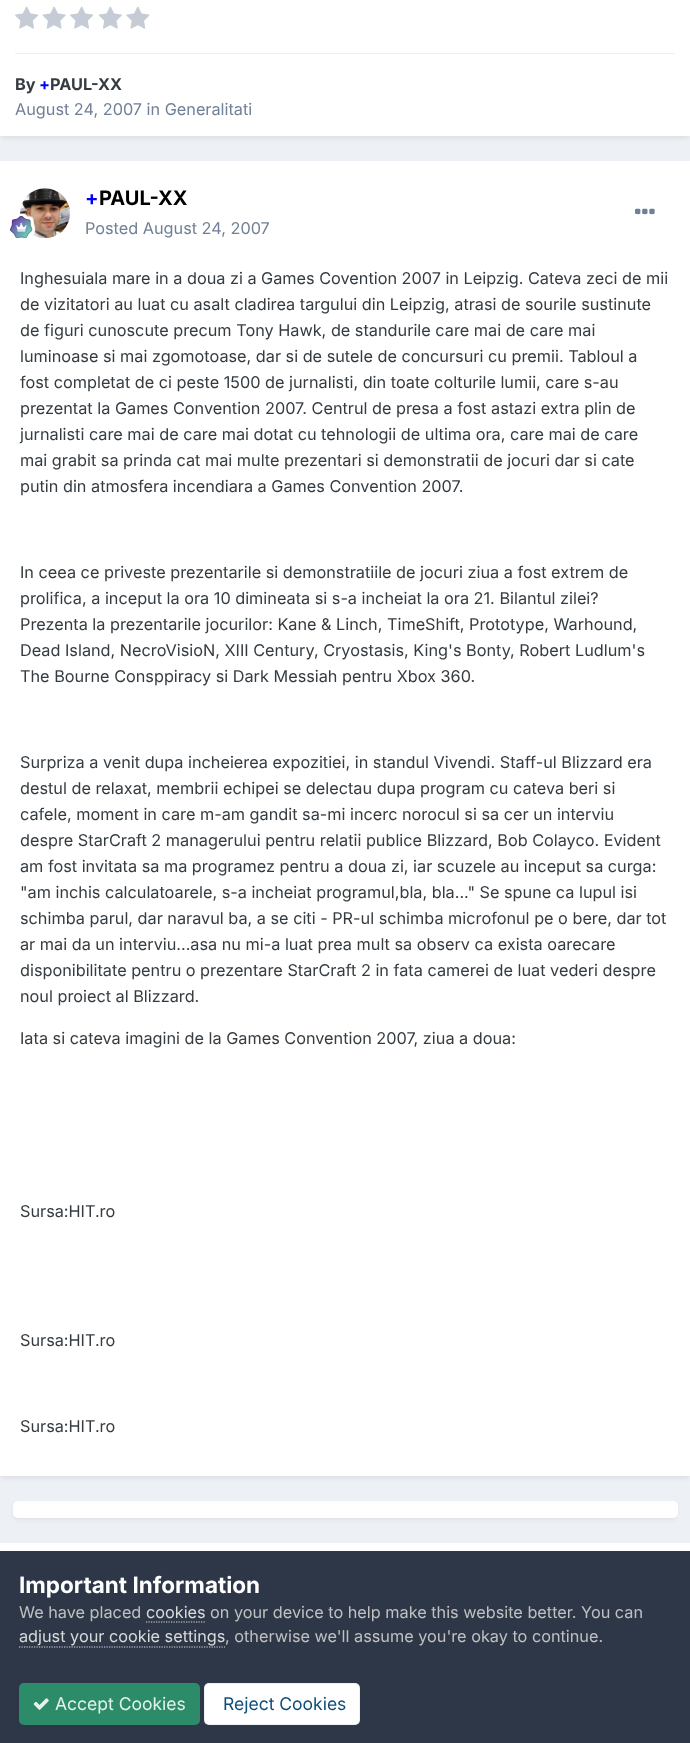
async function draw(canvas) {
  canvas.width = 690;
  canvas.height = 1743;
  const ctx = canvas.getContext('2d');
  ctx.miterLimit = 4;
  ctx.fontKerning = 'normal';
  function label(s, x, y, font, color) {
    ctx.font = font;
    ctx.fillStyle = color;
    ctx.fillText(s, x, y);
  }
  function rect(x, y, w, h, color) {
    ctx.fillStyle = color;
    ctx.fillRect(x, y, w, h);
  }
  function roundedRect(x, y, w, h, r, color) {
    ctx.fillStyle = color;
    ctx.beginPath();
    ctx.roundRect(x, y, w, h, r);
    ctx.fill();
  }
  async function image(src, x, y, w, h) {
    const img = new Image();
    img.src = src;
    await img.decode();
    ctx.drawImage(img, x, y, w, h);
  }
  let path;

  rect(0, 0, 690, 1743, '#edf0f4');
  ctx.fillStyle = '#2d37481a';
  ctx.filter = 'blur(2.5px)';
  ctx.beginPath();
  ctx.rect(1, -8, 688, 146);
  ctx.fill();
  ctx.filter = 'none';
  rect(0, 0, 690, 136, '#fff');
  await image('assets/img1.png', 15, 6, 23, 23);
  await image('assets/img2.png', 42, 6, 24, 23);
  await image('assets/img1.png', 70, 6, 23, 23);
  await image('assets/img3.png', 98, 6, 24, 23);
  await image('assets/img4.png', 126, 6, 24, 23);
  rect(15, 53, 660, 1, '#efeff0');
  label('By', 15, 90, 'bold 16.25px Inter', '#353c41');
  label('+', 39, 90, 'bold 16.25px Inter', '#00f');
  label('PAUL-XX', 50, 90, 'bold 16.25px Inter', '#353c41');
  label('August 24, 2007 in Generalitati', 15, 115, '16.25px Inter', '#718096');
  ctx.fillStyle = '#2d37481a';
  ctx.filter = 'blur(2.5px)';
  ctx.beginPath();
  ctx.rect(1, 165, 688, 1313);
  ctx.fill();
  ctx.filter = 'none';
  rect(0, 161, 690, 1315, '#fff');
  await image('assets/img5.png', 20, 188, 50, 51);
  await image('assets/img6.png', 10, 213, 26, 25);
  label('+', 85, 205, 'bold 20px Inter', '#00f');
  label('PAUL-XX', 99, 205, 'bold 20px Inter', '#000');
  label('Posted August 24, 2007', 85, 234, '16.25px Inter', '#718096');
  await image('assets/img7.png', 635, 208, 20, 7);
  label('Inghesuiala mare in a doua zi a Games Covention 2007 in Leipzig. Cateva zeci de mii', 20, 284, '16.25px Inter', '#353c41');
  label('de vizitatori au luat cu asalt cladirea targului din Leipzig, atrasi de sourile sustinute', 20, 310, '16.25px Inter', '#353c41');
  label('de figuri cunoscute precum Tony Hawk, de standurile care mai de care mai', 20, 336, '16.25px Inter', '#353c41');
  label('luminoase si mai zgomotoase, dar si de sutele de concursuri cu premii. Tabloul a', 20, 362, '16.25px Inter', '#353c41');
  label('fost completat de ci peste 1500 de jurnalisti, din toate colturile lumii, care s-au', 20, 388, '16.25px Inter', '#353c41');
  label('prezentat la Games Convention 2007. Centrul de presa a fost astazi extra plin de', 20, 414, '16.25px Inter', '#353c41');
  label('jurnalisti care mai de care mai dotat cu tehnologii de ultima ora, care mai de care', 20, 440, '16.25px Inter', '#353c41');
  label('mai grabit sa prinda cat mai multe prezentari si demonstratii de jocuri dar si cate', 20, 466, '16.25px Inter', '#353c41');
  label('putin din atmosfera incendiara a Games Convention 2007.', 20, 492, '16.25px Inter', '#353c41');
  label('In ceea ce priveste prezentarile si demonstratiile de jocuri ziua a fost extrem de', 20, 578, '16.25px Inter', '#353c41');
  label('prolifica, a inceput la ora 10 dimineata si s-a incheiat la ora 21. Bilantul zilei?', 20, 604, '16.25px Inter', '#353c41');
  label('Prezenta la prezentarile jocurilor: Kane & Linch, TimeShift, Prototype, Warhound,', 20, 630, '16.25px Inter', '#353c41');
  label('Dead Island, NecroVisioN, XIII Century, Cryostasis, King\'s Bonty, Robert Ludlum\'s', 20, 656, '16.25px Inter', '#353c41');
  label('The Bourne Consppiracy si Dark Messiah pentru Xbox 360.', 20, 682, '16.25px Inter', '#353c41');
  label('Surpriza a venit dupa incheierea expozitiei, in standul Vivendi. Staff-ul Blizzard era', 20, 768, '16.25px Inter', '#353c41');
  label('destul de relaxat, membrii echipei se delectau dupa program cu cateva beri si', 20, 794, '16.25px Inter', '#353c41');
  label('cafele, moment in care m-am gandit sa-mi incerc norocul si sa cer un interviu', 20, 820, '16.25px Inter', '#353c41');
  label('despre StarCraft 2 managerului pentru relatii publice Blizzard, Bob Colayco. Evident', 20, 846, '16.25px Inter', '#353c41');
  label('am fost invitata sa ma programez pentru a doua zi, iar scuzele au inceput sa curga:', 20, 872, '16.25px Inter', '#353c41');
  label('"am inchis calculatoarele, s-a incheiat programul,bla, bla..." Se spune ca lupul isi', 20, 898, '16.25px Inter', '#353c41');
  label('schimba parul, dar naravul ba, a se citi - PR-ul schimba microfonul pe o bere, dar tot', 20, 924, '16.25px Inter', '#353c41');
  label('ar mai da un interviu...asa nu mi-a luat prea mult sa observ ca exista oarecare', 20, 950, '16.25px Inter', '#353c41');
  label('disponibilitate pentru o prezentare StarCraft 2 in fata camerei de luat vederi despre', 20, 976, '16.25px Inter', '#353c41');
  label('noul proiect al Blizzard.', 20, 1002, '16.25px Inter', '#353c41');
  label('Iata si cateva imagini de la Games Convention 2007, ziua a doua:', 20, 1044, '16.25px Inter', '#353c41');
  label('Sursa:HIT.ro', 20, 1217, '16.25px Inter', '#353c41');
  label('Sursa:HIT.ro', 20, 1346, '16.25px Inter', '#353c41');
  label('Sursa:HIT.ro', 20, 1432, '16.25px Inter', '#353c41');
  ctx.fillStyle = '#2d37481a';
  ctx.filter = 'blur(2.5px)';
  ctx.beginPath();
  ctx.roundRect(14, 1505, 662, 14, 4);
  ctx.fill();
  ctx.filter = 'none';
  roundedRect(13, 1501, 665, 17, 5, '#fff');
  rect(0, 1543, 690, 8, '#fff');
  rect(0, 1551, 690, 192, '#2d3748');
  label('Important Information', 19, 1593, 'bold 22.5px Inter', '#fff');
  label('We have placed', 19, 1618, '16.25px Inter', '#c0c0c0');
  label('cookies', 146, 1618, '16.25px Inter', '#dadada');
  path = new Path2D('M146 1622H205');
  ctx.strokeStyle = '#dadada';
  ctx.lineWidth = 1.2;
  ctx.setLineDash([1.25, 1.25]);
  ctx.stroke(path);
  label('on your device to help make this website better. You can', 210, 1618, '16.25px Inter', '#c0c0c0');
  label('adjust your cookie settings', 19, 1642, '16.25px Inter', '#dadada');
  path = new Path2D('M19 1647H225');
  ctx.stroke(path);
  label(', otherwise we\'ll assume you\'re okay to continue.', 225, 1642, '16.25px Inter', '#c0c0c0');
  roundedRect(19, 1683, 181, 42, 5, '#2c8c69');
  await image('assets/img8.png', 33, 1698, 16, 12);
  label('Accept Cookies', 55, 1710, '17.5px Inter', '#e3f3ec');
  roundedRect(204, 1683, 156, 42, 5, '#fff');
  ctx.beginPath();
  ctx.roundRect(204.5, 1683.5, 155, 41, 4.5);
  ctx.strokeStyle = '#0e4c7912';
  ctx.lineWidth = 1;
  ctx.setLineDash([]);
  ctx.stroke();
  label('Reject Cookies', 223, 1710, '17.5px Inter', '#0e4c79');
}

draw(document.querySelector('canvas'));
